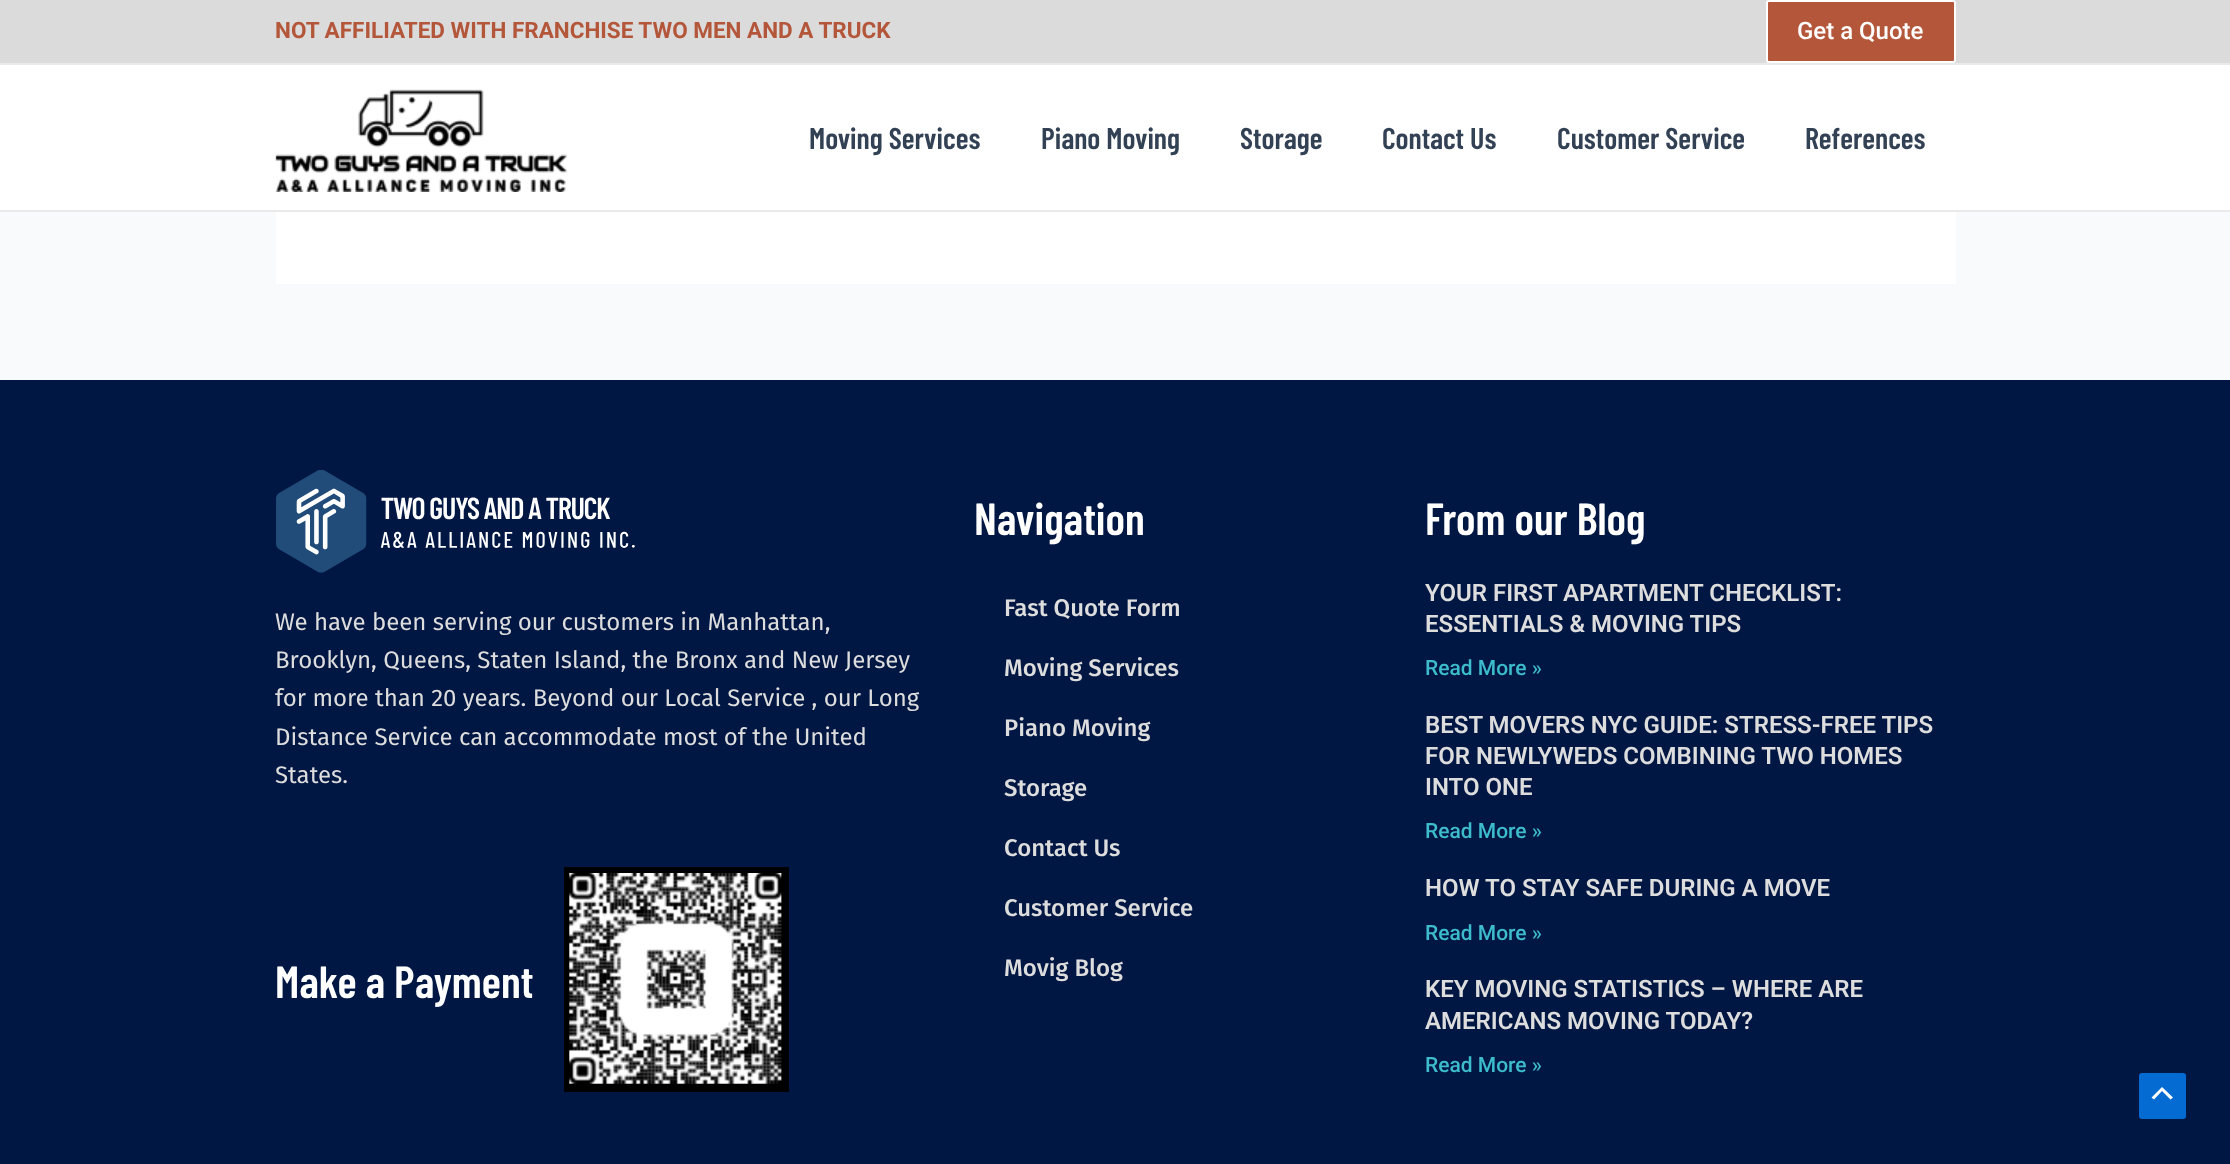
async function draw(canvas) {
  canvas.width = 2230;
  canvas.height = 1164;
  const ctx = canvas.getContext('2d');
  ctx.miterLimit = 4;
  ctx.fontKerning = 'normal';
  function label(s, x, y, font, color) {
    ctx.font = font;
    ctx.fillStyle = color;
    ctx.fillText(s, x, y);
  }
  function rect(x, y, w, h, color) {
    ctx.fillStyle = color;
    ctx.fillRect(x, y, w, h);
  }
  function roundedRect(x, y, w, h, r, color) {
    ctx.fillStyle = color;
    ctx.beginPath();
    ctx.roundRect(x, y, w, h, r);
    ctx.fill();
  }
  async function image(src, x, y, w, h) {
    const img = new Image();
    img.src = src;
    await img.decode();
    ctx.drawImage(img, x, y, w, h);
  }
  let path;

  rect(0, 0, 2230, 1164, '#f9fafb');
  rect(0, 0, 2230, 63, '#dbdbdb');
  rect(0, 63, 2230, 2, '#eaeaea');
  label('NOT AFFILIATED WITH FRANCHISE TWO MEN AND A TRUCK', 275, 38, 'bold 22.5px Roboto', '#b45639');
  ctx.beginPath();
  ctx.roundRect(1767, 1, 188, 61, 2);
  ctx.fill();
  ctx.strokeStyle = '#fff';
  ctx.lineWidth = 2;
  ctx.stroke();
  label('Get a Quote', 1797, 39, '500 24px Roboto', '#fff');
  rect(0, 65, 2230, 145, '#fff');
  rect(0, 210, 2230, 2, '#eaeaea');
  await image('assets/img1.png', 275, 89, 292, 103);
  label('Moving Services', 809, 149, '600 30px Barlow Condensed', '#334155');
  label('Piano Moving', 1041, 149, '600 30px Barlow Condensed', '#334155');
  label('Storage', 1240, 149, '600 30px Barlow Condensed', '#334155');
  label('Contact Us', 1382, 149, '600 30px Barlow Condensed', '#334155');
  label('Customer Service', 1557, 149, '600 30px Barlow Condensed', '#334155');
  label('References', 1805, 149, '600 30px Barlow Condensed', '#334155');
  rect(276, 212, 1680, 72, '#fff');
  rect(0, 380, 2230, 784, '#001744');
  await image('assets/img2.png', 276, 470, 359, 103);
  label('We have been serving our customers in Manhattan,', 275, 630, '24px Fira Sans', '#ddd');
  label('Brooklyn, Queens, Staten Island, the Bronx and New Jersey', 275, 668, '24px Fira Sans', '#ddd');
  label('for more than 20 years. Beyond our Local Service , our Long', 275, 706, '24px Fira Sans', '#ddd');
  label('Distance Service can accommodate most of the United', 275, 745, '24px Fira Sans', '#ddd');
  label('States.', 275, 783, '24px Fira Sans', '#ddd');
  label('Make a Payment', 275, 998, '600 45px Barlow Condensed', '#fff');
  await image('assets/img3.png', 564, 867, 225, 225);
  label('Navigation', 974, 535, '600 45px Barlow Condensed', '#fff');
  label('Fast Quote Form', 1004, 616, '500 24px Fira Sans', '#ddd');
  label('Moving Services', 1004, 676, '500 24px Fira Sans', '#ddd');
  label('Piano Moving', 1004, 736, '500 24px Fira Sans', '#ddd');
  label('Storage', 1004, 796, '500 24px Fira Sans', '#ddd');
  label('Contact Us', 1004, 856, '500 24px Fira Sans', '#ddd');
  label('Customer Service', 1004, 916, '500 24px Fira Sans', '#ddd');
  label('Movig Blog', 1004, 976, '500 24px Fira Sans', '#ddd');
  label('From our Blog', 1425, 535, '600 45px Barlow Condensed', '#fff');
  label('YOUR FIRST APARTMENT CHECKLIST:', 1425, 601, '600 24px Roboto', '#ddd');
  label('ESSENTIALS & MOVING TIPS', 1425, 632, '600 24px Roboto', '#ddd');
  label('Read More »', 1425, 675, '500 21px Roboto', '#3dbccc');
  label('BEST MOVERS NYC GUIDE: STRESS-FREE TIPS', 1425, 733, '600 24px Roboto', '#ddd');
  label('FOR NEWLYWEDS COMBINING TWO HOMES', 1425, 764, '600 24px Roboto', '#ddd');
  label('INTO ONE', 1425, 795, '600 24px Roboto', '#ddd');
  label('Read More »', 1425, 838, '500 21px Roboto', '#3dbccc');
  label('HOW TO STAY SAFE DURING A MOVE', 1425, 896, '600 24px Roboto', '#ddd');
  label('Read More »', 1425, 940, '500 21px Roboto', '#3dbccc');
  label('KEY MOVING STATISTICS – WHERE ARE', 1425, 997, '600 24px Roboto', '#ddd');
  label('AMERICANS MOVING TODAY?', 1425, 1029, '600 24px Roboto', '#ddd');
  label('Read More »', 1425, 1072, '500 21px Roboto', '#3dbccc');
  roundedRect(2139, 1073, 47, 46, 3, '#046bd2');
  ctx.fillStyle = '#fff';
  path = new Path2D('M2173 1097.5L2162 1087L2151.5 1097.5L2154 1099.5L2162 1091L2170.5 1099.5Z');
  ctx.fill(path);
}

draw(document.querySelector('canvas'));
